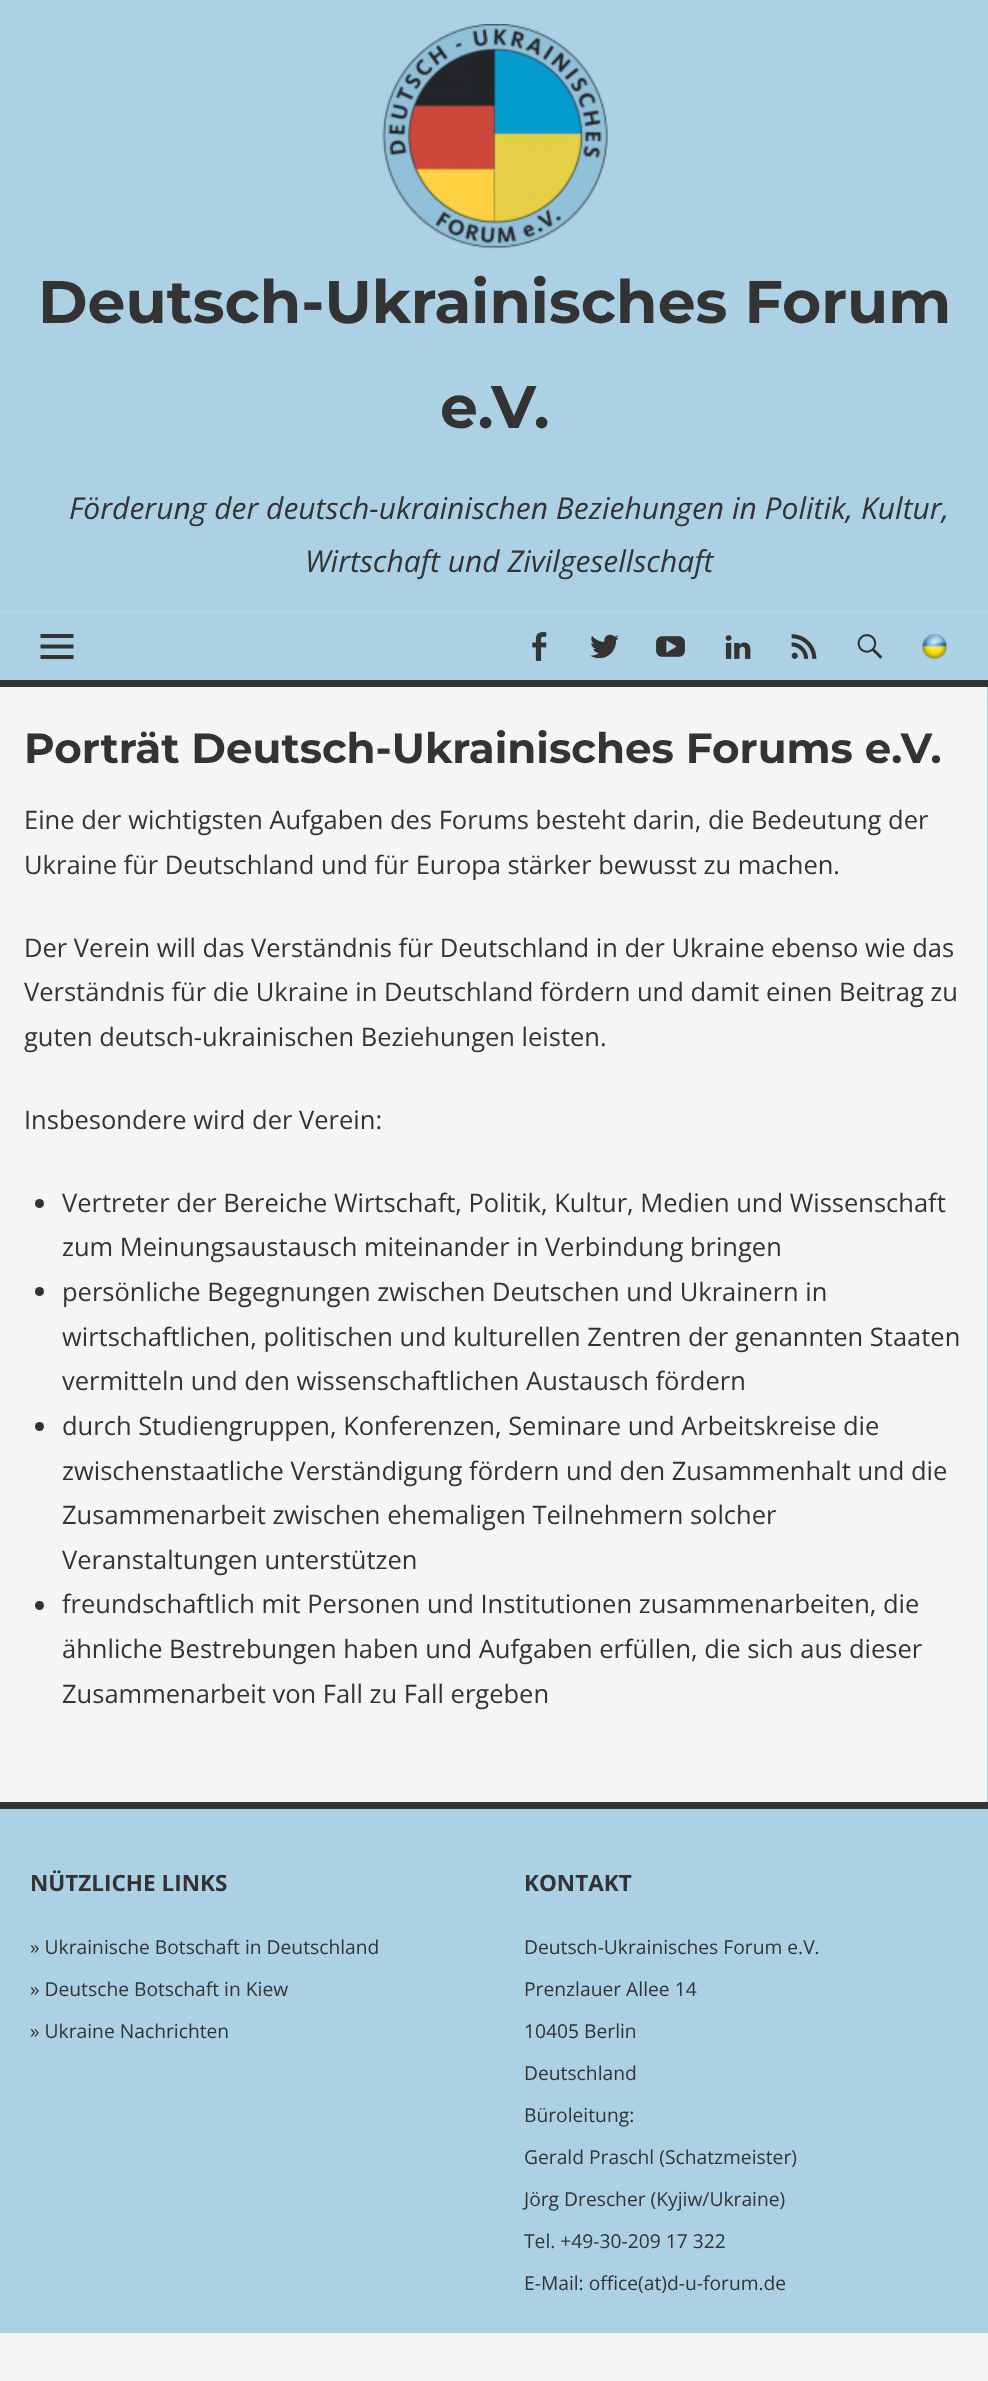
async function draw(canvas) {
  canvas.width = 988;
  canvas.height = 2381;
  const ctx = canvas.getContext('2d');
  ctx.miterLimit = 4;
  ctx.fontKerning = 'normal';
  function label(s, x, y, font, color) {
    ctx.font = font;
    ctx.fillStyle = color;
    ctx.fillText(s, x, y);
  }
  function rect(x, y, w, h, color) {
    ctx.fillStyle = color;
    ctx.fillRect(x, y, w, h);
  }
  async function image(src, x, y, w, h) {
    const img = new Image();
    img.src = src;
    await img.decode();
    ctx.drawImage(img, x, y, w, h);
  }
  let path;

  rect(0, 0, 988, 2381, '#f5f5f5');
  rect(0, 0, 988, 680, '#acd1e4');
  rect(0, 680, 988, 7, '#333');
  await image('assets/img1.png', 382, 24, 226, 225);
  label('Deutsch-Ukrainisches Forum', 38, 323, 'bold 60px Montserrat', '#333');
  label('e.V.', 440, 428, 'bold 60px Montserrat', '#333');
  label('Förderung der deutsch-ukrainischen Beziehungen in Politik, Kultur,', 69, 519, 'italic 30px Open Sans', '#333');
  label('Wirtschaft und Zivilgesellschaft', 305, 572, 'italic 30px Open Sans', '#333');
  rect(0, 611, 988, 3, '#b4d6e7');
  ctx.fillStyle = '#333';
  path = new Path2D('M40.5 659V655H73.5V659ZM40.5 634H73.5V638H40.5ZM40.5 648.5V644.5H73.5V648.5Z');
  ctx.fill(path);
  await image('assets/img2.png', 532, 632, 15, 29);
  await image('assets/img3.png', 590, 634, 29, 25);
  await image('assets/img4.png', 656, 636, 29, 21);
  await image('assets/img5.png', 725, 635, 26, 24);
  await image('assets/img6.png', 791, 634, 26, 25);
  await image('assets/img7.png', 857, 634, 26, 25);
  await image('assets/img8.png', 922, 633, 25, 27);
  rect(987, 687, 1, 1115, '#acd1e4');
  label('Porträt Deutsch-Ukrainisches Forums e.V.', 24, 763, 'bold 42px Montserrat', '#333');
  label('Eine der wichtigsten Aufgaben des Forums besteht darin, die Bedeutung der', 24, 829, '25.5px Open Sans', '#333');
  label('Ukraine für Deutschland und für Europa stärker bewusst zu machen.', 24, 874, '25.5px Open Sans', '#333');
  label('Der Verein will das Verständnis für Deutschland in der Ukraine ebenso wie das', 24, 957, '25.5px Open Sans', '#333');
  label('Verständnis für die Ukraine in Deutschland fördern und damit einen Beitrag zu', 24, 1001, '25.5px Open Sans', '#333');
  label('guten deutsch-ukrainischen Beziehungen leisten.', 24, 1046, '25.5px Open Sans', '#333');
  label('Insbesondere wird der Verein:', 24, 1129, '25.5px Open Sans', '#333');
  ctx.beginPath();
  ctx.arc(39.5, 1203.5, 4.5, 0, 2 * Math.PI);
  ctx.fill();
  label('Vertreter der Bereiche Wirtschaft, Politik, Kultur, Medien und Wissenschaft', 62, 1212, '25.5px Open Sans', '#333');
  label('zum Meinungsaustausch miteinander in Verbindung bringen', 62, 1256, '25.5px Open Sans', '#333');
  ctx.beginPath();
  ctx.arc(39.5, 1291.5, 4.5, 0, 2 * Math.PI);
  ctx.fill();
  label('persönliche Begegnungen zwischen Deutschen und Ukrainern in', 62, 1301, '25.5px Open Sans', '#333');
  label('wirtschaftlichen, politischen und kulturellen Zentren der genannten Staaten', 62, 1346, '25.5px Open Sans', '#333');
  label('vermitteln und den wissenschaftlichen Austausch fördern', 62, 1390, '25.5px Open Sans', '#333');
  ctx.beginPath();
  ctx.arc(39.5, 1426.5, 4.5, 0, 2 * Math.PI);
  ctx.fill();
  label('durch Studiengruppen, Konferenzen, Seminare und Arbeitskreise die', 62, 1435, '25.5px Open Sans', '#333');
  label('zwischenstaatliche Verständigung fördern und den Zusammenhalt und die', 62, 1480, '25.5px Open Sans', '#333');
  label('Zusammenarbeit zwischen ehemaligen Teilnehmern solcher', 62, 1524, '25.5px Open Sans', '#333');
  label('Veranstaltungen unterstützen', 62, 1569, '25.5px Open Sans', '#333');
  ctx.beginPath();
  ctx.arc(39.5, 1605.5, 4.5, 0, 2 * Math.PI);
  ctx.fill();
  label('freundschaftlich mit Personen und Institutionen zusammenarbeiten, die', 62, 1613, '25.5px Open Sans', '#333');
  label('ähnliche Bestrebungen haben und Aufgaben erfüllen, die sich aus dieser', 62, 1658, '25.5px Open Sans', '#333');
  label('Zusammenarbeit von Fall zu Fall ergeben', 62, 1703, '25.5px Open Sans', '#333');
  rect(0, 1809, 988, 524, '#acd1e4');
  rect(0, 1802, 988, 7, '#333');
  label('NÜTZLICHE LINKS', 30, 1891, 'bold 22.5px Open Sans', '#333');
  label('» Ukrainische Botschaft in Deutschland', 30, 1954, '19.25px Open Sans', '#333');
  label('» Deutsche Botschaft in Kiew', 30, 1996, '19.25px Open Sans', '#333');
  label('» Ukraine Nachrichten', 30, 2038, '19.25px Open Sans', '#333');
  label('KONTAKT', 524, 1891, 'bold 22.5px Open Sans', '#333');
  label('Deutsch-Ukrainisches Forum e.V.', 524, 1954, '19.25px Open Sans', '#333');
  label('Prenzlauer Allee 14', 524, 1996, '19.25px Open Sans', '#333');
  label('10405 Berlin', 524, 2038, '19.25px Open Sans', '#333');
  label('Deutschland', 524, 2080, '19.25px Open Sans', '#333');
  label('Büroleitung:', 524, 2122, '19.25px Open Sans', '#333');
  label('Gerald Praschl (Schatzmeister)', 524, 2164, '19.25px Open Sans', '#333');
  label('Jörg Drescher (Kyjiw/Ukraine)', 524, 2206, '19.25px Open Sans', '#333');
  label('Tel. +49-30-209 17 322', 524, 2248, '19.25px Open Sans', '#333');
  label('E-Mail: office(at)d-u-forum.de', 524, 2290, '19.25px Open Sans', '#333');
}

draw(document.querySelector('canvas'));
